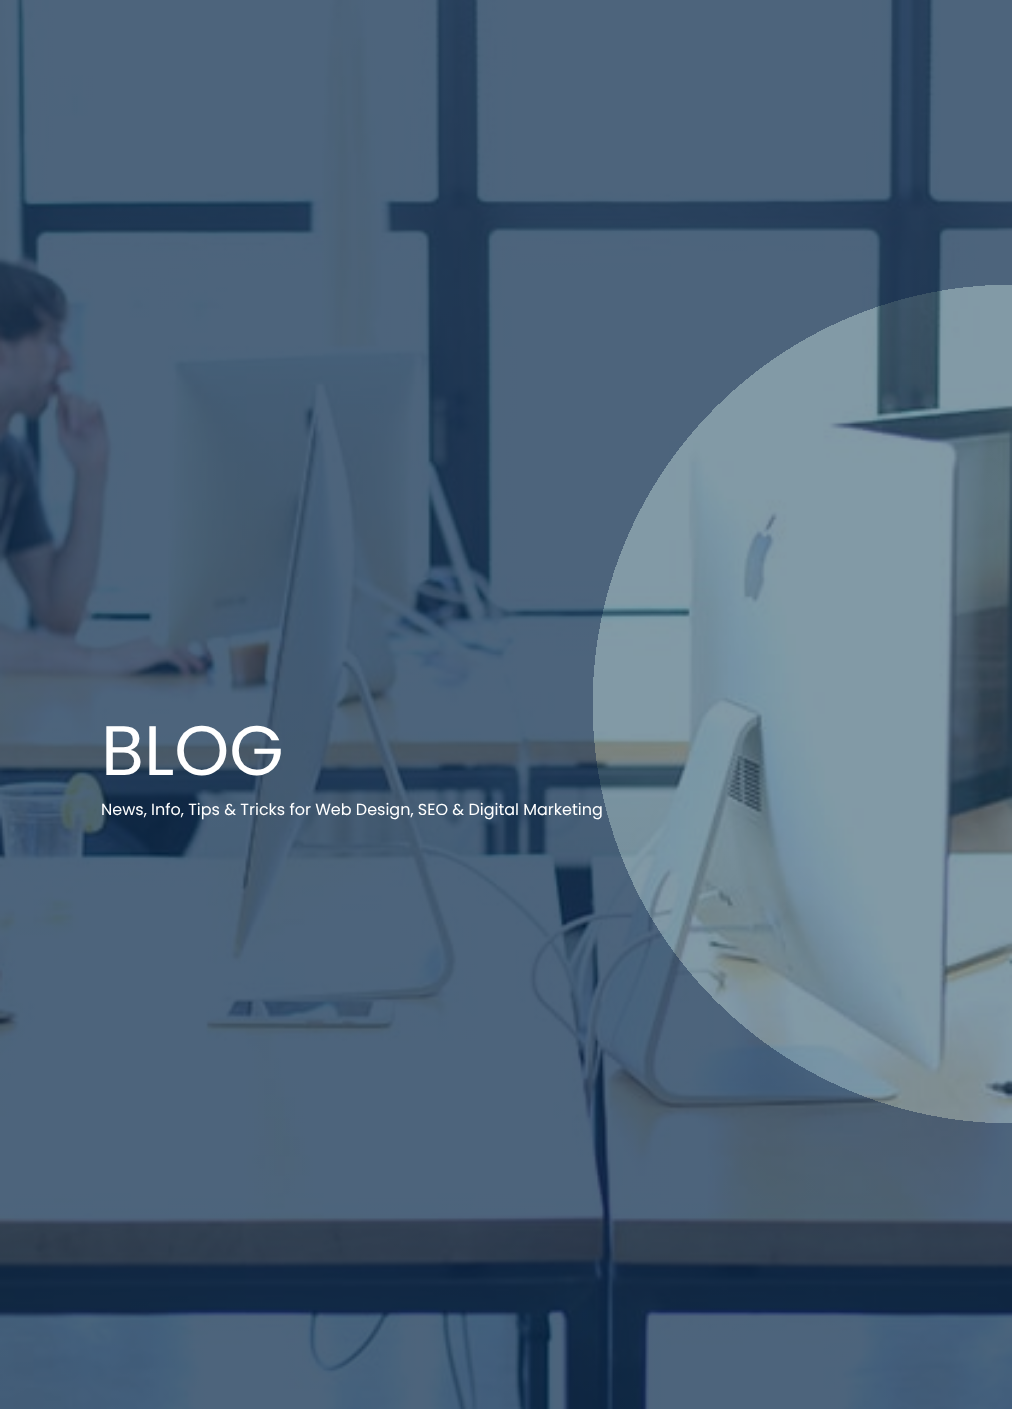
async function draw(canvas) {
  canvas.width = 1012;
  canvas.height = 1410;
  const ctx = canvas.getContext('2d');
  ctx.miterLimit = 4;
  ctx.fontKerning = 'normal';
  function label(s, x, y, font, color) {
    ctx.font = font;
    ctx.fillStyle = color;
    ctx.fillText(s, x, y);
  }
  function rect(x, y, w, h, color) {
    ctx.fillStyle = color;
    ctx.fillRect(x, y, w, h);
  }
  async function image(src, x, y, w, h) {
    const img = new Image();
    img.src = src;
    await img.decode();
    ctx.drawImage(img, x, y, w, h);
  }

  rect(0, 0, 1012, 1410, '#fff');
  await image('assets/img1.png', 0, 0, 1012, 1409);
  label('BLOG', 101, 775, '70px Poppins', '#fff');
  label('News, Info, Tips & Tricks for Web Design, SEO & Digital Marketing', 101, 815, '16px Poppins', '#fff');
}

draw(document.querySelector('canvas'));
